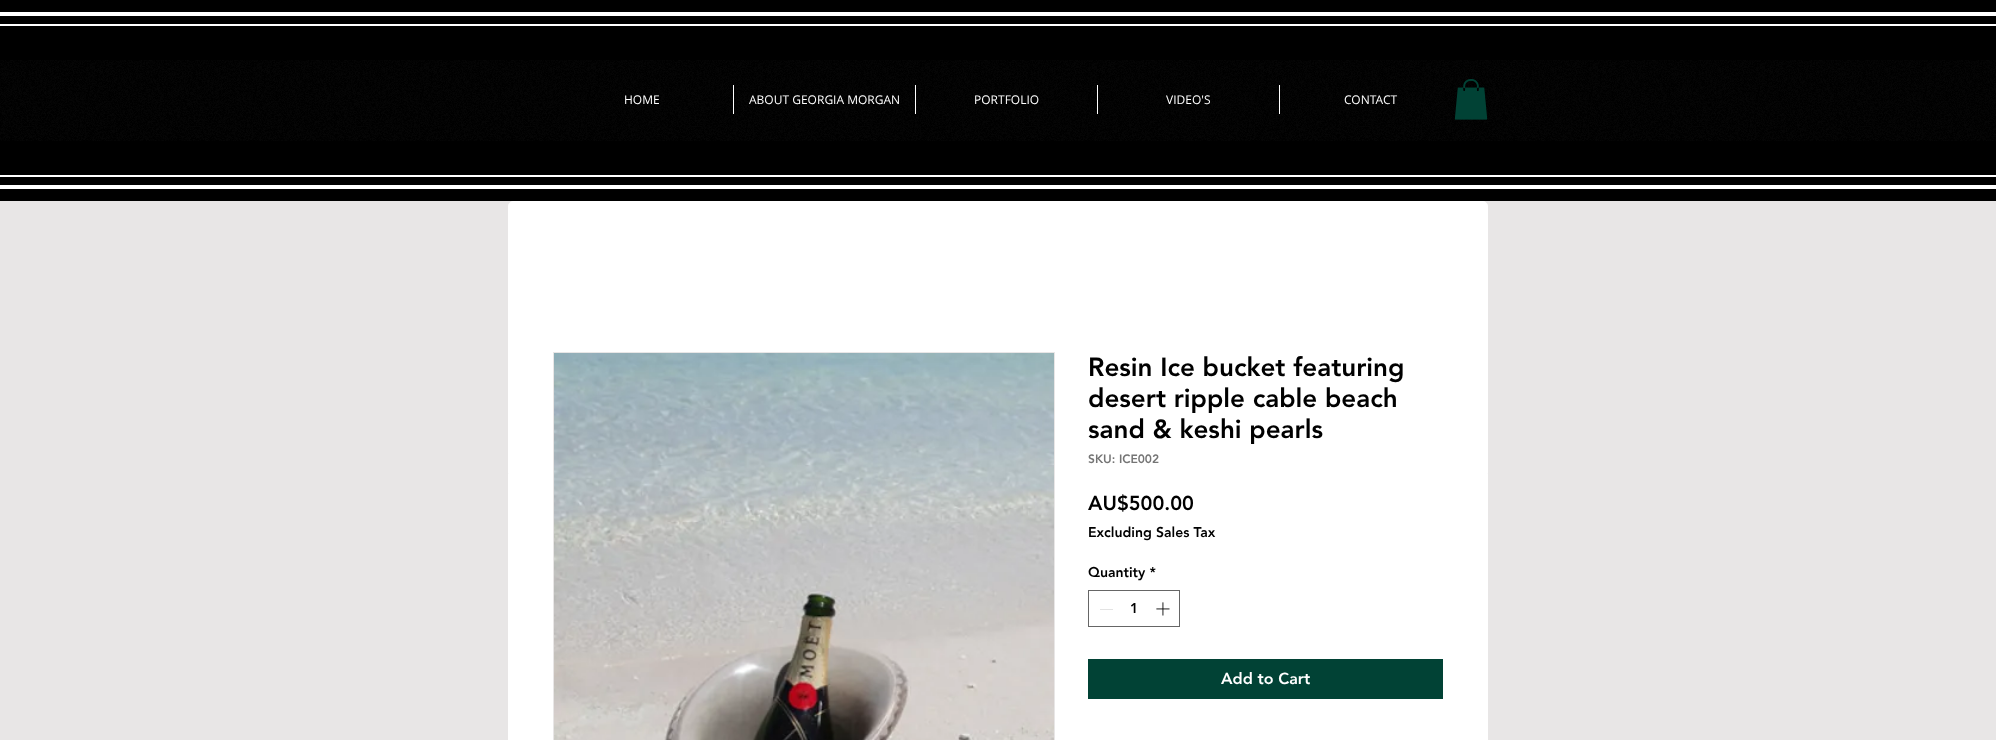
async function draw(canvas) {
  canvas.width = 1996;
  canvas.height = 740;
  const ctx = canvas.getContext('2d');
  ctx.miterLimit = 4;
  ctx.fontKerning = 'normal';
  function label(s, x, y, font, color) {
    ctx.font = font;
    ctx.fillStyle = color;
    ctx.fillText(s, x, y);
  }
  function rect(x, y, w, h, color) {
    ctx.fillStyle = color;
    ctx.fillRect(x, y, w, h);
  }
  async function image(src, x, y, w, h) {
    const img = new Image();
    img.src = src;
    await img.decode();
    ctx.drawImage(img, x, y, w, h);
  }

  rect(0, 0, 1996, 740, '#e8e6e6');
  rect(0, 0, 1996, 201, '#000');
  rect(0, 12, 1996, 4, '#fff');
  rect(0, 185, 1996, 4, '#fff');
  rect(0, 24, 1996, 2, '#fff');
  rect(0, 175, 1996, 2, '#fff');
  await image('assets/img1.png', 0, 60, 1996, 81);
  label('HOME', 624, 104, '12px Open Sans', '#fff');
  rect(733, 85, 1, 29, '#fff');
  label('ABOUT GEORGIA MORGAN', 749, 104, '12px Open Sans', '#fff');
  rect(915, 85, 1, 29, '#fff');
  label('PORTFOLIO', 974, 104, '12px Open Sans', '#fff');
  rect(1097, 85, 1, 29, '#fff');
  label('VIDEO\'S', 1166, 104, '12px Open Sans', '#fff');
  rect(1279, 85, 1, 29, '#fff');
  label('CONTACT', 1344, 104, '12px Open Sans', '#fff');
  await image('assets/img2.png', 1454, 79, 34, 41);
  ctx.beginPath();
  ctx.roundRect(508.5, 201.5, 979, 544, 4.5);
  ctx.fill();
  ctx.strokeStyle = '#fff';
  ctx.stroke();
  ctx.strokeStyle = '#e8e6e6';
  ctx.strokeRect(553.5, 352.5, 501, 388);
  await image('assets/img3.png', 554, 353, 500, 387);
  label('Resin Ice bucket featuring', 1088, 376, '900 26px "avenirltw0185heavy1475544"', '#000');
  label('desert ripple cable beach', 1088, 407, '900 26px "avenirltw0185heavy1475544"', '#000');
  label('sand & keshi pearls', 1088, 438, '900 26px "avenirltw0185heavy1475544"', '#000');
  label('SKU: ICE002', 1088, 463, '900 12px "avenirltw0185heavy1475544"', '#757575');
  label('AU$500.00', 1088, 510, '900 20px "avenirltw0185heavy1475544"', '#000');
  label('Excluding Sales Tax', 1088, 537, '900 14px "avenirltw0185heavy1475544"', '#000');
  label('Quantity *', 1088, 577, '900 14px "avenirltw0185heavy1475544"', '#000');
  ctx.strokeStyle = '#666';
  ctx.strokeRect(1088.5, 590.5, 91, 36);
  rect(1100, 609, 13, 1, '#e3e3e3');
  label('1', 1130, 613, '900 14px "avenirltw0185heavy1475544"', '#000');
  await image('assets/img4.png', 1156, 602, 14, 14);
  rect(1088, 659, 355, 40, '#014235');
  label('Add to Cart', 1221, 684, '900 16px "avenirltw0185heavy1475544"', '#fff');
}

draw(document.querySelector('canvas'));
